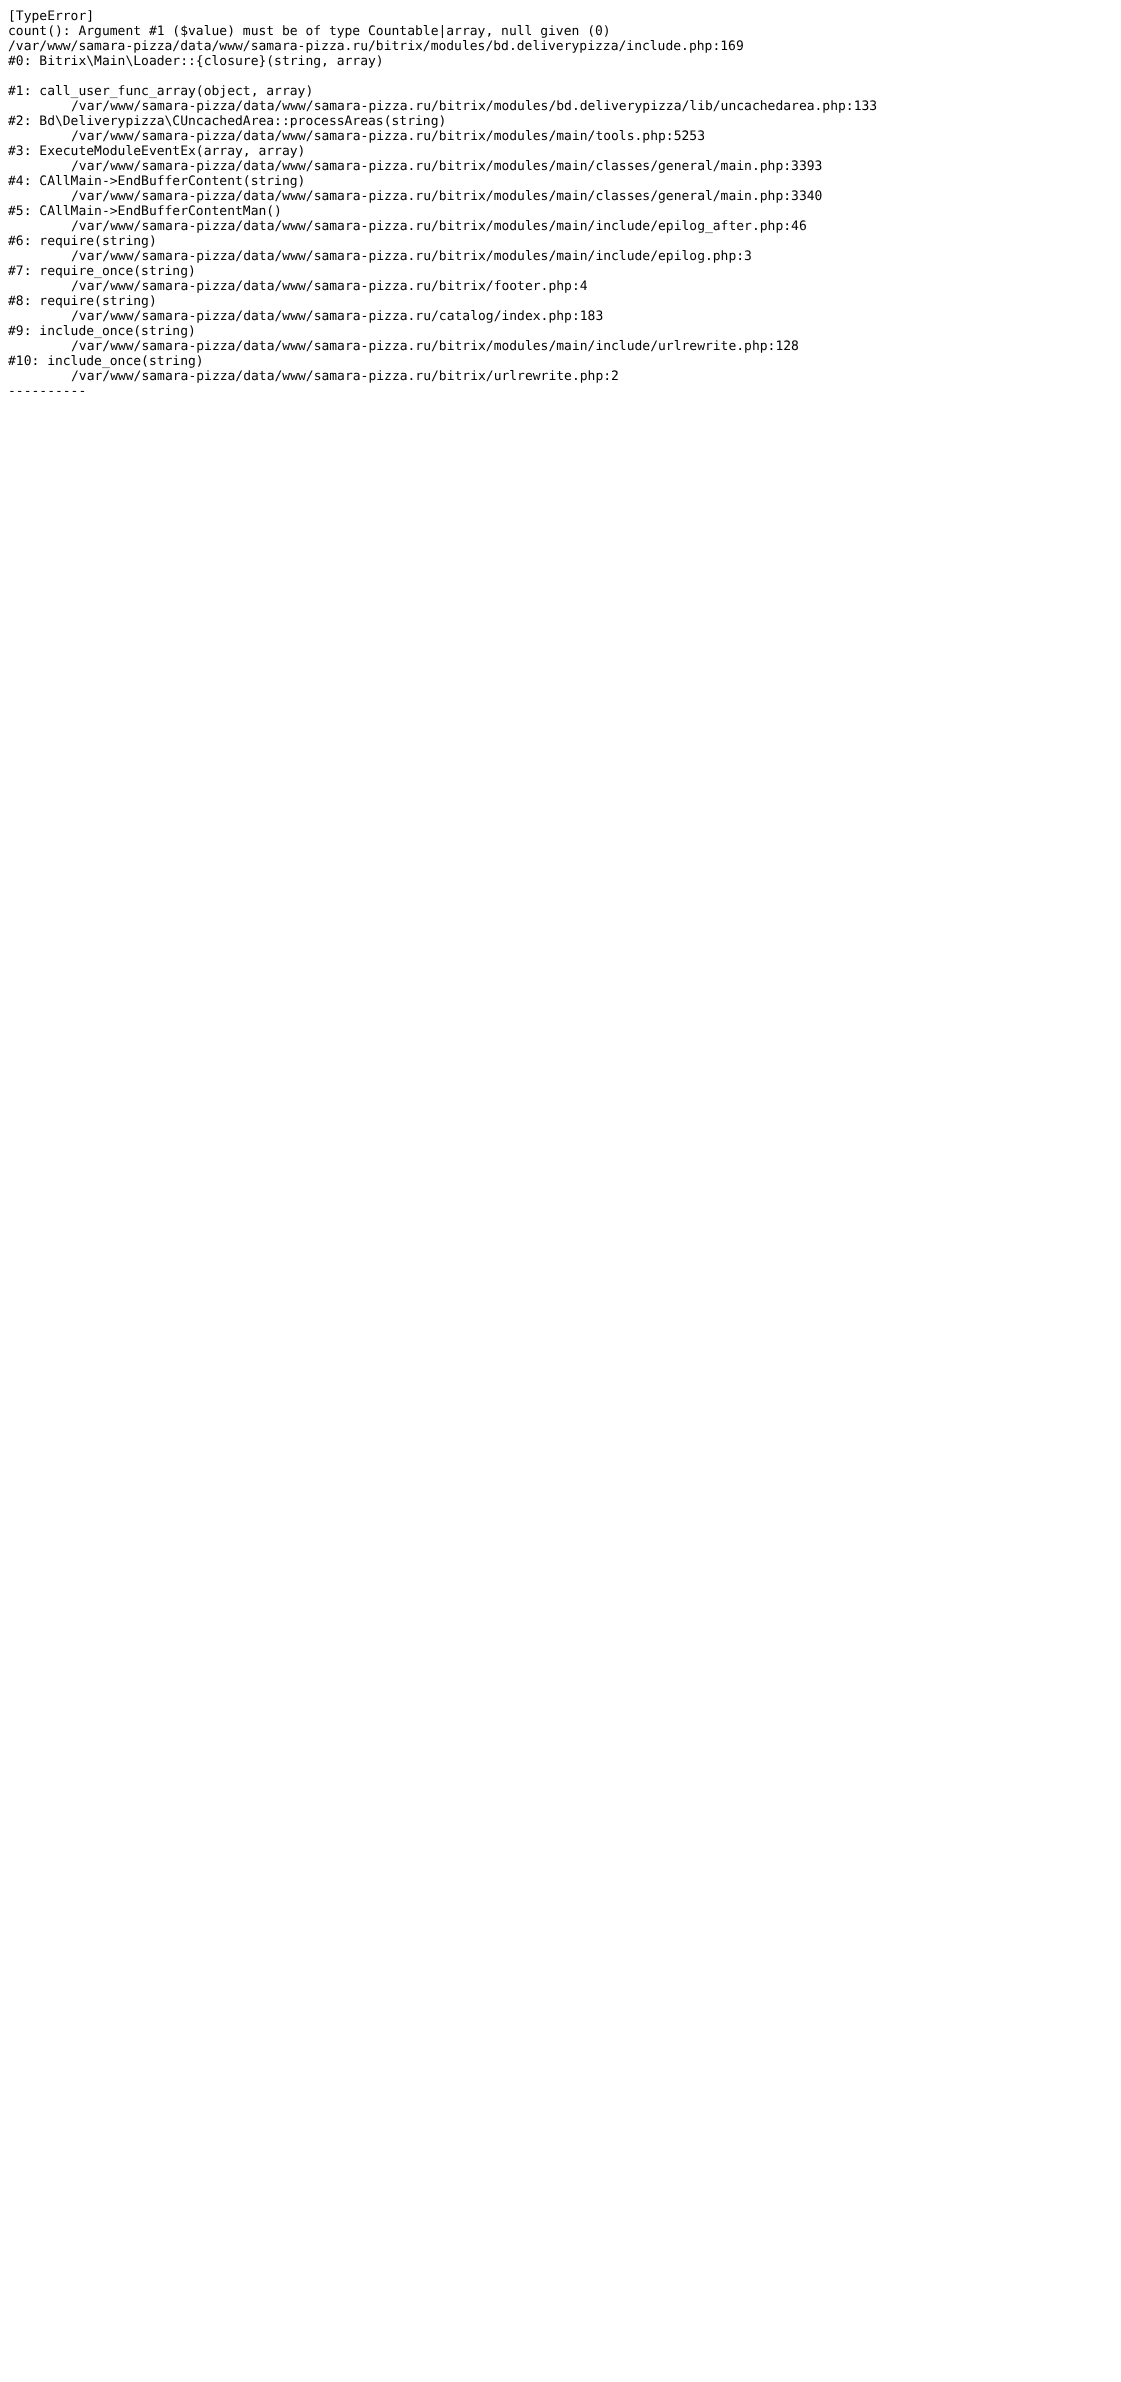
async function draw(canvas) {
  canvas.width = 1121;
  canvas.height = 2382;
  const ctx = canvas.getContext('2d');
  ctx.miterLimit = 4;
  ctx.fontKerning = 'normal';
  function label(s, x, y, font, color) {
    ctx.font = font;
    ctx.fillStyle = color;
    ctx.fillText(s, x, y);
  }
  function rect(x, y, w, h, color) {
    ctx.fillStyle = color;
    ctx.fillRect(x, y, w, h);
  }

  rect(0, 0, 1121, 2382, '#fff');
  label('[TypeError]', 8, 20, '13px DejaVu Sans Mono', '#000');
  label('count(): Argument #1 ($value) must be of type Countable|array, null given (0)', 8, 35, '13px DejaVu Sans Mono', '#000');
  label('/var/www/samara-pizza/data/www/samara-pizza.ru/bitrix/modules/bd.deliverypizza/include.php:169', 8, 50, '13px DejaVu Sans Mono', '#000');
  label('#0: Bitrix\\Main\\Loader::{closure}(string, array)', 8, 65, '13px DejaVu Sans Mono', '#000');
  label('#1: call_user_func_array(object, array)', 8, 95, '13px DejaVu Sans Mono', '#000');
  label('/var/www/samara-pizza/data/www/samara-pizza.ru/bitrix/modules/bd.deliverypizza/lib/uncachedarea.php:133', 71, 110, '13px DejaVu Sans Mono', '#000');
  label('#2: Bd\\Deliverypizza\\CUncachedArea::processAreas(string)', 8, 125, '13px DejaVu Sans Mono', '#000');
  label('/var/www/samara-pizza/data/www/samara-pizza.ru/bitrix/modules/main/tools.php:5253', 71, 140, '13px DejaVu Sans Mono', '#000');
  label('#3: ExecuteModuleEventEx(array, array)', 8, 155, '13px DejaVu Sans Mono', '#000');
  label('/var/www/samara-pizza/data/www/samara-pizza.ru/bitrix/modules/main/classes/general/main.php:3393', 71, 170, '13px DejaVu Sans Mono', '#000');
  label('#4: CAllMain->EndBufferContent(string)', 8, 185, '13px DejaVu Sans Mono', '#000');
  label('/var/www/samara-pizza/data/www/samara-pizza.ru/bitrix/modules/main/classes/general/main.php:3340', 71, 200, '13px DejaVu Sans Mono', '#000');
  label('#5: CAllMain->EndBufferContentMan()', 8, 215, '13px DejaVu Sans Mono', '#000');
  label('/var/www/samara-pizza/data/www/samara-pizza.ru/bitrix/modules/main/include/epilog_after.php:46', 71, 230, '13px DejaVu Sans Mono', '#000');
  label('#6: require(string)', 8, 245, '13px DejaVu Sans Mono', '#000');
  label('/var/www/samara-pizza/data/www/samara-pizza.ru/bitrix/modules/main/include/epilog.php:3', 71, 260, '13px DejaVu Sans Mono', '#000');
  label('#7: require_once(string)', 8, 275, '13px DejaVu Sans Mono', '#000');
  label('/var/www/samara-pizza/data/www/samara-pizza.ru/bitrix/footer.php:4', 71, 290, '13px DejaVu Sans Mono', '#000');
  label('#8: require(string)', 8, 305, '13px DejaVu Sans Mono', '#000');
  label('/var/www/samara-pizza/data/www/samara-pizza.ru/catalog/index.php:183', 71, 320, '13px DejaVu Sans Mono', '#000');
  label('#9: include_once(string)', 8, 335, '13px DejaVu Sans Mono', '#000');
  label('/var/www/samara-pizza/data/www/samara-pizza.ru/bitrix/modules/main/include/urlrewrite.php:128', 71, 350, '13px DejaVu Sans Mono', '#000');
  label('#10: include_once(string)', 8, 365, '13px DejaVu Sans Mono', '#000');
  label('/var/www/samara-pizza/data/www/samara-pizza.ru/bitrix/urlrewrite.php:2', 71, 380, '13px DejaVu Sans Mono', '#000');
  label('----------', 8, 395, '13px DejaVu Sans Mono', '#000');
}

draw(document.querySelector('canvas'));
